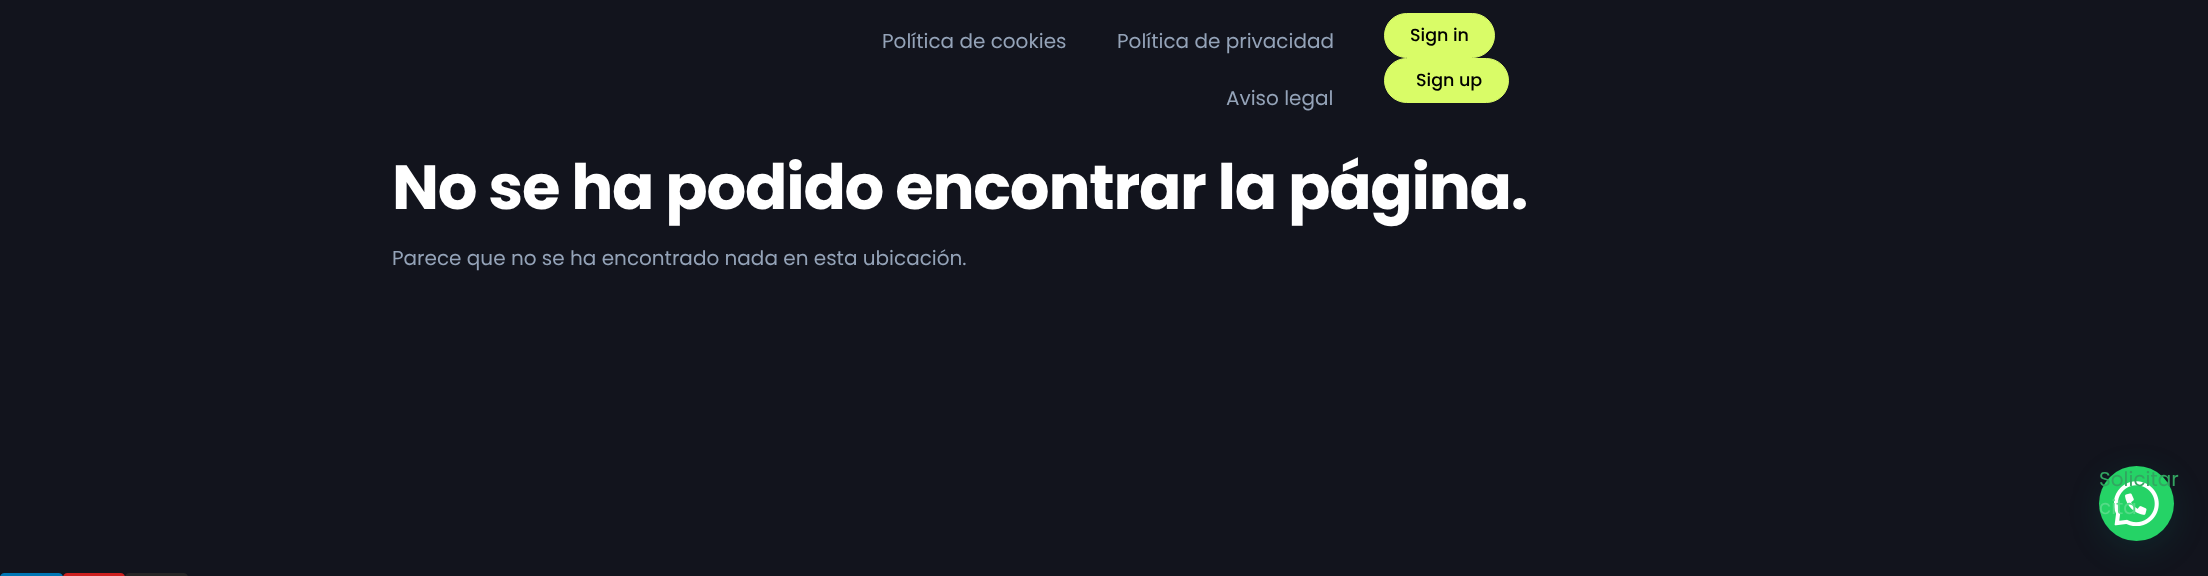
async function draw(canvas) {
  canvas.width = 2208;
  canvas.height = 576;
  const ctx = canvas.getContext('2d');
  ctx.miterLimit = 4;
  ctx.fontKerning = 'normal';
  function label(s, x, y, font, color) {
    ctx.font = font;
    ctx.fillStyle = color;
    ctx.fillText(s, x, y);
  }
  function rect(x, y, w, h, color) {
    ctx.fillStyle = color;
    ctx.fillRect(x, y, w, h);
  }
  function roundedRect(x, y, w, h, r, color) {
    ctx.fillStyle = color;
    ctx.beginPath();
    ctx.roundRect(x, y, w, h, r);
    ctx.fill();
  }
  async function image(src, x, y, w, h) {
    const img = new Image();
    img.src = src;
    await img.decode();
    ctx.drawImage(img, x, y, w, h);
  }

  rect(0, 0, 2208, 576, '#12141d');
  label('Política de cookies', 882, 48, '20px Poppins', '#94a3b8');
  label('Política de privacidad', 1117, 48, '20px Poppins', '#94a3b8');
  label('Aviso legal', 1226, 105, '20px Poppins', '#94a3b8');
  ctx.fillStyle = '#d9fc67';
  ctx.beginPath();
  ctx.roundRect(1384.5, 13.5, 110, 44, 22);
  ctx.fill();
  ctx.strokeStyle = '#d9fc67';
  ctx.stroke();
  label('Sign in', 1410, 41, '500 17.5px Poppins', '#000');
  ctx.fillStyle = '#d9fc67';
  ctx.beginPath();
  ctx.roundRect(1384.5, 58.5, 124, 44, 22);
  ctx.fill();
  ctx.stroke();
  label('Sign up', 1416, 86, '500 17.5px Poppins', '#000');
  ctx.letterSpacing = '-1.25px';
  label('No se ha podido encontrar la página.', 392, 209, 'bold 62.5px Poppins', '#fff');
  ctx.letterSpacing = '0px';
  label('Parece que no se ha encontrado nada en esta ubicación.', 392, 265, '20px Poppins', '#94a3b8');
  ctx.fillStyle = '#075e543d';
  ctx.filter = 'blur(15px)';
  ctx.beginPath();
  ctx.roundRect(2100, 474, 75, 75, 37.5);
  ctx.fill();
  ctx.filter = 'none';
  ctx.fillStyle = '#25d366';
  ctx.beginPath();
  ctx.arc(2136.5, 503.5, 37.5, 0, 2 * Math.PI);
  ctx.fill();
  await image('assets/img1.png', 2114, 481, 45, 45);
  label('Solicitar', 2099, 486, '20px Poppins', '#33a561');
  label('cita', 2099, 514, '20px Poppins', '#55db87');
  roundedRect(0, 573, 63, 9, 6, '#0077b5');
  roundedRect(63, 573, 62, 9, 6, '#cd201f');
  roundedRect(125, 573, 63, 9, 6, '#262626');
}

draw(document.querySelector('canvas'));
